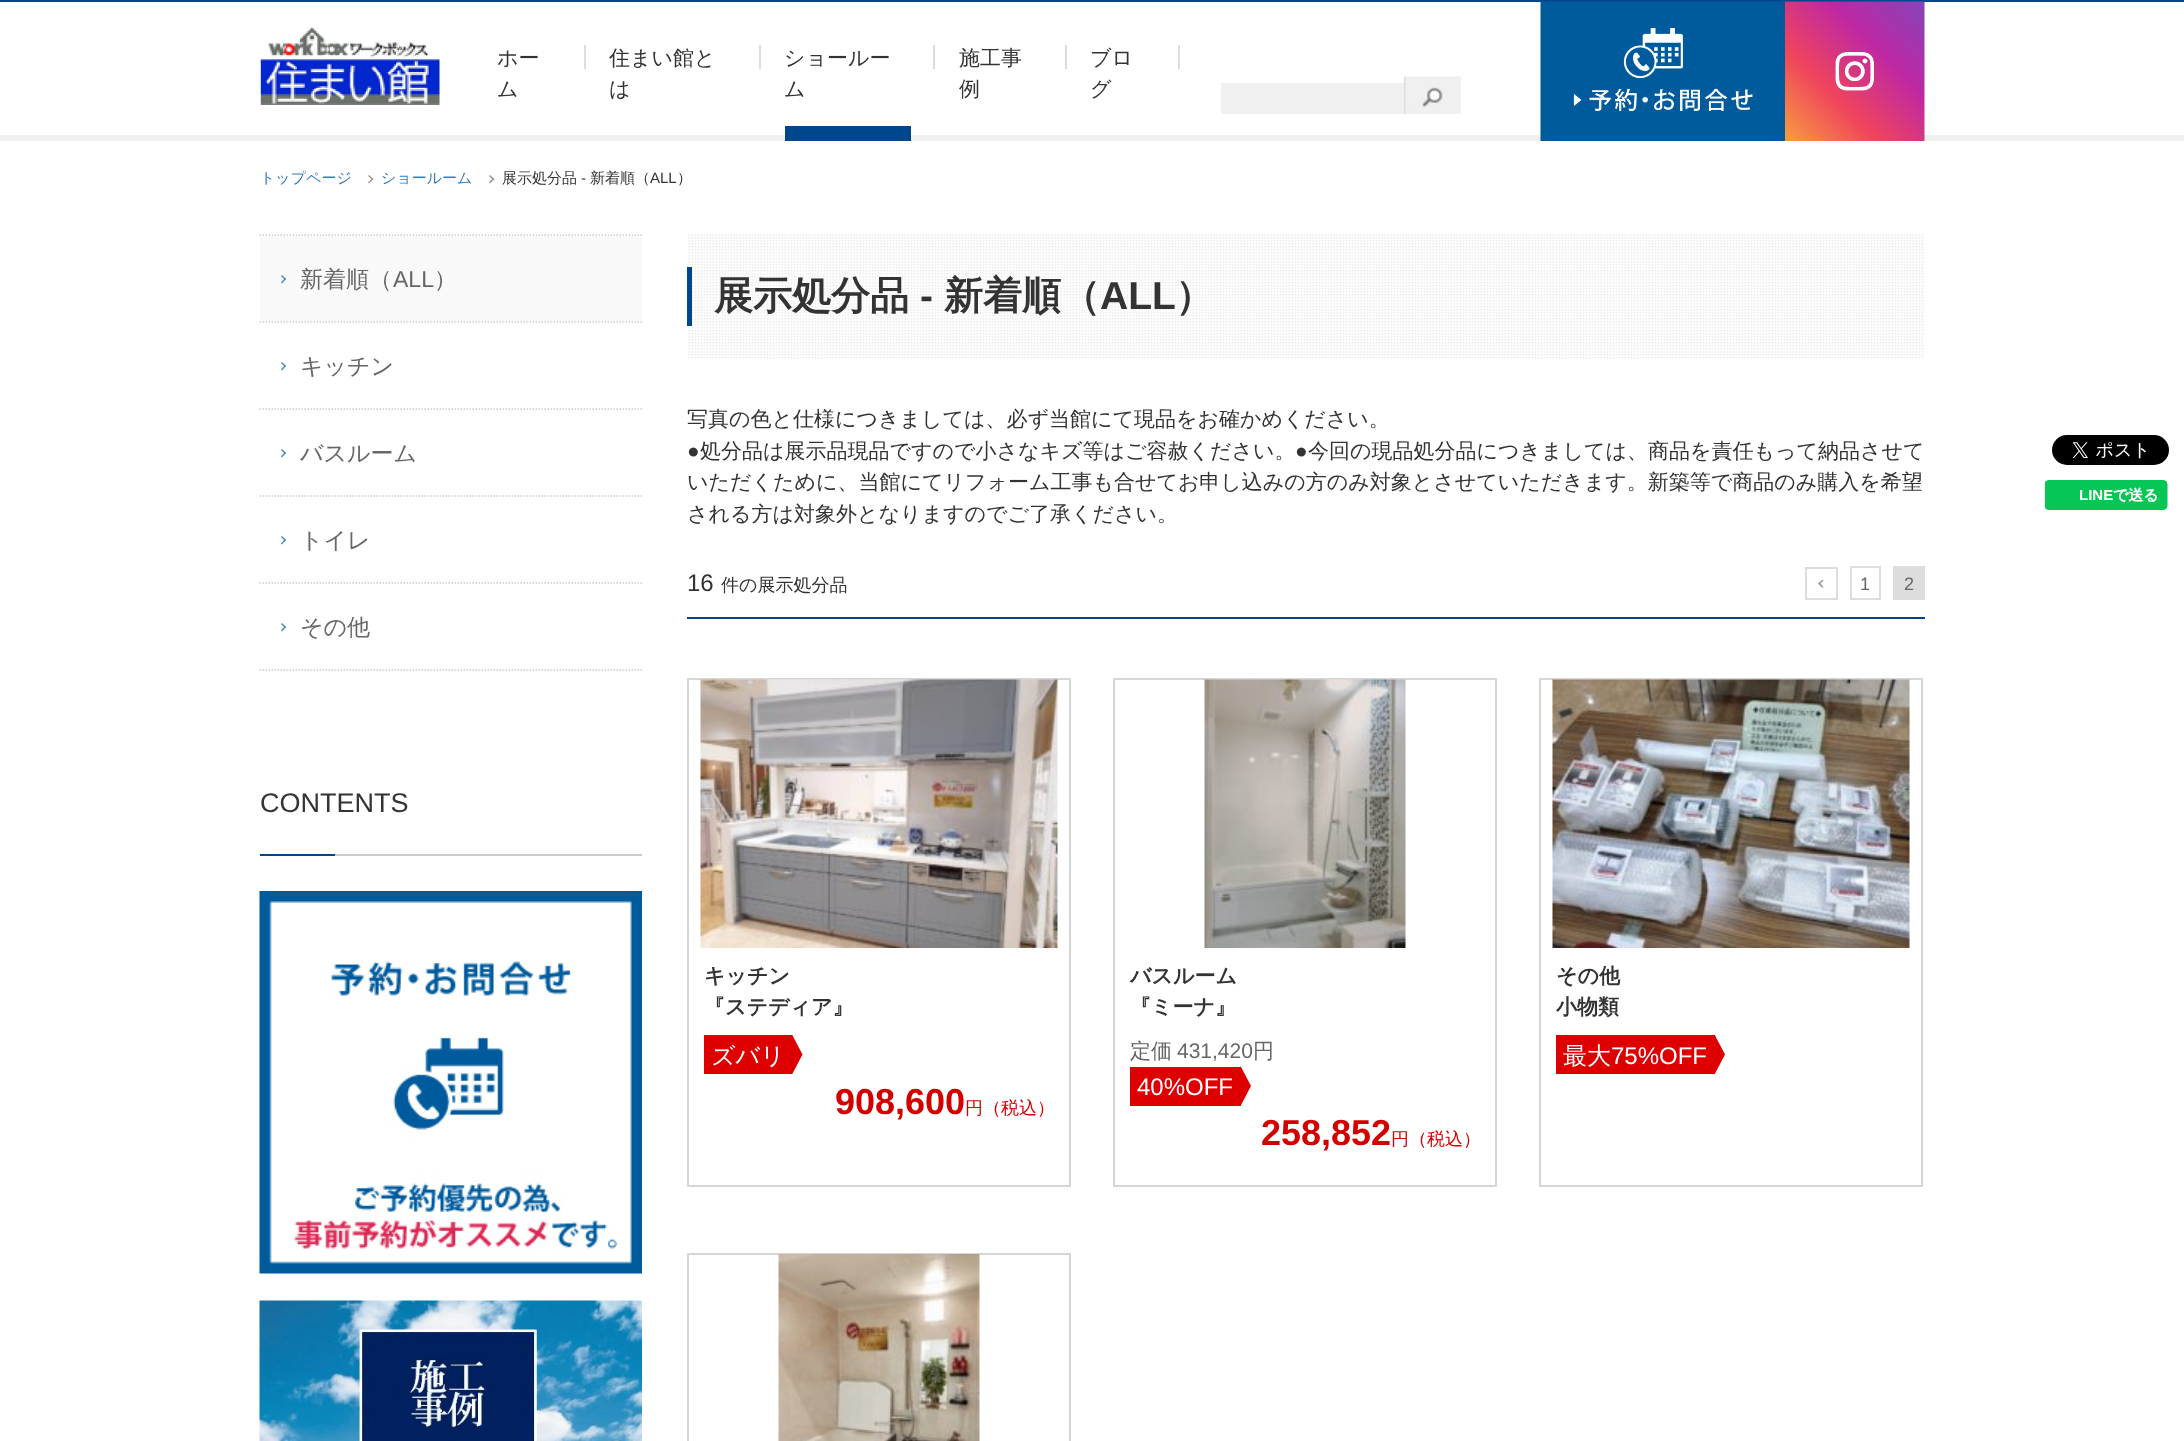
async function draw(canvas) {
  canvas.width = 2184;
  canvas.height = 1441;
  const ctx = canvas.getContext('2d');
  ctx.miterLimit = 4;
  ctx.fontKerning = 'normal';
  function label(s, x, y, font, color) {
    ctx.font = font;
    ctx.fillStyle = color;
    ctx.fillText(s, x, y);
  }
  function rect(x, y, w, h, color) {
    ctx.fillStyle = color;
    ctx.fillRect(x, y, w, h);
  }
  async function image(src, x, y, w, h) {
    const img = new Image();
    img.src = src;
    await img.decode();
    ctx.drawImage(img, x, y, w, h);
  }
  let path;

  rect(0, 0, 2184, 1441, '#fff');
  rect(0, 0, 2184, 2, '#00468c');
  rect(0, 135, 2184, 6, '#f0f0f0');
  await image('assets/img1.png', 260, 26, 180, 79);
  label('ホー', 497, 65, '500 21px WenQuanYi Zen Hei', '#333');
  label('ム', 497, 96, '500 21px WenQuanYi Zen Hei', '#333');
  rect(584, 45, 2, 24, '#ddd');
  label('住まい館と', 609, 65, '500 21px WenQuanYi Zen Hei', '#333');
  label('は', 609, 96, '500 21px WenQuanYi Zen Hei', '#333');
  rect(759, 45, 2, 24, '#ddd');
  rect(785, 126, 126, 15, '#00468c');
  label('ショールー', 784, 65, '500 21px WenQuanYi Zen Hei', '#333');
  label('ム', 784, 96, '500 21px WenQuanYi Zen Hei', '#333');
  rect(933, 45, 2, 24, '#ddd');
  label('施工事', 959, 65, '500 21px WenQuanYi Zen Hei', '#333');
  label('例', 959, 96, '500 21px WenQuanYi Zen Hei', '#333');
  rect(1065, 45, 2, 24, '#ddd');
  label('ブロ', 1090, 65, '500 21px WenQuanYi Zen Hei', '#333');
  label('グ', 1090, 96, '500 21px WenQuanYi Zen Hei', '#333');
  rect(1178, 45, 2, 24, '#ddd');
  rect(1221, 83, 183, 31, '#f0f0f0');
  await image('assets/img2.png', 1404, 76, 57, 38);
  await image('assets/img3.png', 1540, 1, 245, 140);
  await image('assets/img4.png', 1785, 1, 140, 140);
  label('トップページ', 260, 183, '500 15px WenQuanYi Zen Hei', '#337cbd');
  ctx.fillStyle = '#999';
  path = new Path2D('M369 175L373.5 179L372.5 180L368 176Z');
  ctx.fill(path);
  path = new Path2D('M372.5 178L373.5 179L369 183.5L368 182.5Z');
  ctx.fill(path);
  label('ショールーム', 381, 183, '500 15px WenQuanYi Zen Hei', '#337cbd');
  ctx.fillStyle = '#999';
  path = new Path2D('M490 175L494.5 179L493 180L489 176Z');
  ctx.fill(path);
  path = new Path2D('M493 178L494.5 179L490 183.5L489 182.5Z');
  ctx.fill(path);
  label('展示処分品', 502, 183, '500 15px WenQuanYi Zen Hei', '#333');
  label('-', 581, 183, '15px Liberation Sans', '#333');
  label('新着順（', 590, 183, '500 15px WenQuanYi Zen Hei', '#333');
  label('ALL', 650, 183, '15px Liberation Sans', '#333');
  label('）', 677, 183, '500 15px WenQuanYi Zen Hei', '#333');
  path = new Path2D('M259.5 235H642');
  ctx.strokeStyle = '#ccc';
  ctx.lineWidth = 1.5;
  ctx.setLineDash([1.5, 1.5]);
  ctx.stroke(path);
  path = new Path2D('M259.5 322H642');
  ctx.stroke(path);
  rect(260, 236, 382, 85, '#f9f9f9');
  ctx.fillStyle = '#3f89c6';
  path = new Path2D('M282 275L286 279L285 280L281 276Z');
  ctx.fill(path);
  path = new Path2D('M285 278L286 279L282 283.5L281 282.5Z');
  ctx.fill(path);
  label('新着順（', 300, 287, '500 23px WenQuanYi Zen Hei', '#666');
  label('ALL', 393, 287, '23px Liberation Sans', '#666');
  label('）', 434, 287, '500 23px WenQuanYi Zen Hei', '#666');
  path = new Path2D('M259.5 409H642');
  ctx.stroke(path);
  ctx.fillStyle = '#3f89c6';
  path = new Path2D('M282 362L286 366L285 367L281 363Z');
  ctx.fill(path);
  path = new Path2D('M285 365L286 366L282 370.5L281 369.5Z');
  ctx.fill(path);
  label('キッチン', 300, 374, '500 23px WenQuanYi Zen Hei', '#666');
  path = new Path2D('M259.5 496H642');
  ctx.stroke(path);
  ctx.fillStyle = '#3f89c6';
  path = new Path2D('M282 449L286 453L285 454L281 450Z');
  ctx.fill(path);
  path = new Path2D('M285 452L286 453L282 457.5L281 456.5Z');
  ctx.fill(path);
  label('バスルーム', 300, 461, '500 23px WenQuanYi Zen Hei', '#666');
  path = new Path2D('M259.5 583H642');
  ctx.stroke(path);
  ctx.fillStyle = '#3f89c6';
  path = new Path2D('M282 536L286 540L285 541L281 537Z');
  ctx.fill(path);
  path = new Path2D('M285 539L286 540L282 544.5L281 543.5Z');
  ctx.fill(path);
  label('トイレ', 300, 548, '500 23px WenQuanYi Zen Hei', '#666');
  path = new Path2D('M259.5 670H642');
  ctx.stroke(path);
  ctx.fillStyle = '#3f89c6';
  path = new Path2D('M282 623L286 627L285 628L281 624Z');
  ctx.fill(path);
  path = new Path2D('M285 626L286 627L282 631.5L281 630.5Z');
  ctx.fill(path);
  label('その他', 300, 635, '500 23px WenQuanYi Zen Hei', '#666');
  rect(335, 854, 307, 2, '#ccc');
  label('CONTENTS', 260, 812, '27px Liberation Sans', '#333');
  rect(260, 854, 75, 2, '#00468c');
  await image('assets/img5.png', 259, 891, 383, 383);
  await image('assets/img6.png', 259, 1300, 383, 141);
  await image('assets/img7.png', 688, 234, 1237, 125);
  rect(687, 267, 5, 59, '#00468c');
  label('展示処分品', 714, 309, 'bold 39px WenQuanYi Zen Hei', '#333');
  label('-', 920, 309, 'bold 39px Liberation Sans', '#333');
  label('新着順（', 944, 309, 'bold 39px WenQuanYi Zen Hei', '#333');
  label('ALL', 1100, 309, 'bold 39px Liberation Sans', '#333');
  label('）', 1175, 309, 'bold 39px WenQuanYi Zen Hei', '#333');
  label('写真の色と仕様につきましては、必ず当館にて現品をお確かめください。', 687, 426, '500 21px WenQuanYi Zen Hei', '#333');
  label('●', 687, 458, '21px Liberation Sans', '#333');
  label('処分品は展示品現品ですので小さなキズ等はご容赦ください。', 700, 458, '500 21px WenQuanYi Zen Hei', '#333');
  label('●', 1295, 458, '21px Liberation Sans', '#333');
  label('今回の現品処分品につきましては、商品を責任もって納品させて', 1308, 458, '500 21px WenQuanYi Zen Hei', '#333');
  label('いただくために、当館にてリフォーム工事も合せてお申し込みの方のみ対象とさせていただきます。新築等で商品のみ購入を希望', 687, 489, '500 21px WenQuanYi Zen Hei', '#333');
  label('される方は対象外となりますのでご了承ください。', 687, 521, '500 21px WenQuanYi Zen Hei', '#333');
  rect(687, 617, 1238, 2, '#00468c');
  label('16', 687, 591, '24px Liberation Sans', '#333');
  label('件の展示処分品', 721, 591, '500 18px WenQuanYi Zen Hei', '#333');
  ctx.strokeStyle = '#ddd';
  ctx.lineWidth = 2;
  ctx.setLineDash([]);
  ctx.strokeRect(1806, 568, 31, 31);
  ctx.fillStyle = '#999';
  path = new Path2D('M1822.5 588L1818 583.5L1819.5 582.5L1823.5 587Z');
  ctx.fill(path);
  path = new Path2D('M1819.5 584.5L1818 583.5L1822.5 579.5L1823.5 580.5Z');
  ctx.fill(path);
  ctx.strokeRect(1851, 567, 29, 32);
  label('1', 1860, 590, '18px Liberation Sans', '#666');
  rect(1893, 566, 32, 34, '#ddd');
  label('2', 1904, 590, '18px Liberation Sans', '#666');
  ctx.strokeStyle = '#d6d6d6';
  ctx.strokeRect(688, 679, 382, 507);
  await image('assets/img8.png', 700, 679, 358, 269);
  label('キッチン', 704, 983, 'bold 21px WenQuanYi Zen Hei', '#333');
  label('『ステディア』', 704, 1014, 'bold 21px WenQuanYi Zen Hei', '#333');
  rect(704, 1035, 88, 39, '#de0000');
  label('ズバリ', 711, 1064, '500 24px WenQuanYi Zen Hei', '#fff');
  ctx.fillStyle = '#de0000';
  path = new Path2D('M792 1074.5V1034.5L802.5 1054.5Z');
  ctx.fill(path);
  label('908,600', 835, 1114, 'bold 36px Liberation Sans', '#d40000');
  label('円（税込）', 965, 1114, '500 18px WenQuanYi Zen Hei', '#d40000');
  ctx.strokeRect(1114, 679, 382, 507);
  await image('assets/img9.png', 1204, 679, 202, 269);
  label('バスルーム', 1130, 983, 'bold 21px WenQuanYi Zen Hei', '#333');
  label('『ミーナ』', 1130, 1014, 'bold 21px WenQuanYi Zen Hei', '#333');
  label('定価', 1130, 1058, '500 21px WenQuanYi Zen Hei', '#666');
  label('431,420', 1177, 1058, '21px Liberation Sans', '#666');
  label('円', 1253, 1058, '500 21px WenQuanYi Zen Hei', '#666');
  rect(1130, 1067, 111, 39, '#de0000');
  label('40%OFF', 1137, 1095, '24px Liberation Sans', '#fff');
  ctx.fillStyle = '#de0000';
  path = new Path2D('M1240.5 1106V1066L1251 1086Z');
  ctx.fill(path);
  label('258,852', 1261, 1145, 'bold 36px Liberation Sans', '#d40000');
  label('円（税込）', 1391, 1145, '500 18px WenQuanYi Zen Hei', '#d40000');
  ctx.strokeRect(1540, 679, 382, 507);
  await image('assets/img10.png', 1552, 679, 358, 269);
  label('その他', 1556, 983, 'bold 21px WenQuanYi Zen Hei', '#333');
  label('小物類', 1556, 1014, 'bold 21px WenQuanYi Zen Hei', '#333');
  rect(1556, 1035, 159, 39, '#de0000');
  label('最大', 1563, 1064, '500 24px WenQuanYi Zen Hei', '#fff');
  label('75%OFF', 1611, 1064, '24px Liberation Sans', '#fff');
  ctx.fillStyle = '#de0000';
  path = new Path2D('M1714.5 1074.5V1034.5L1725 1054.5Z');
  ctx.fill(path);
  ctx.strokeRect(688, 1254, 382, 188);
  await image('assets/img11.png', 778, 1254, 202, 187);
  await image('assets/img12.png', 2052, 435, 117, 30);
  await image('assets/img13.png', 2044, 480, 124, 30);
}

draw(document.querySelector('canvas'));
